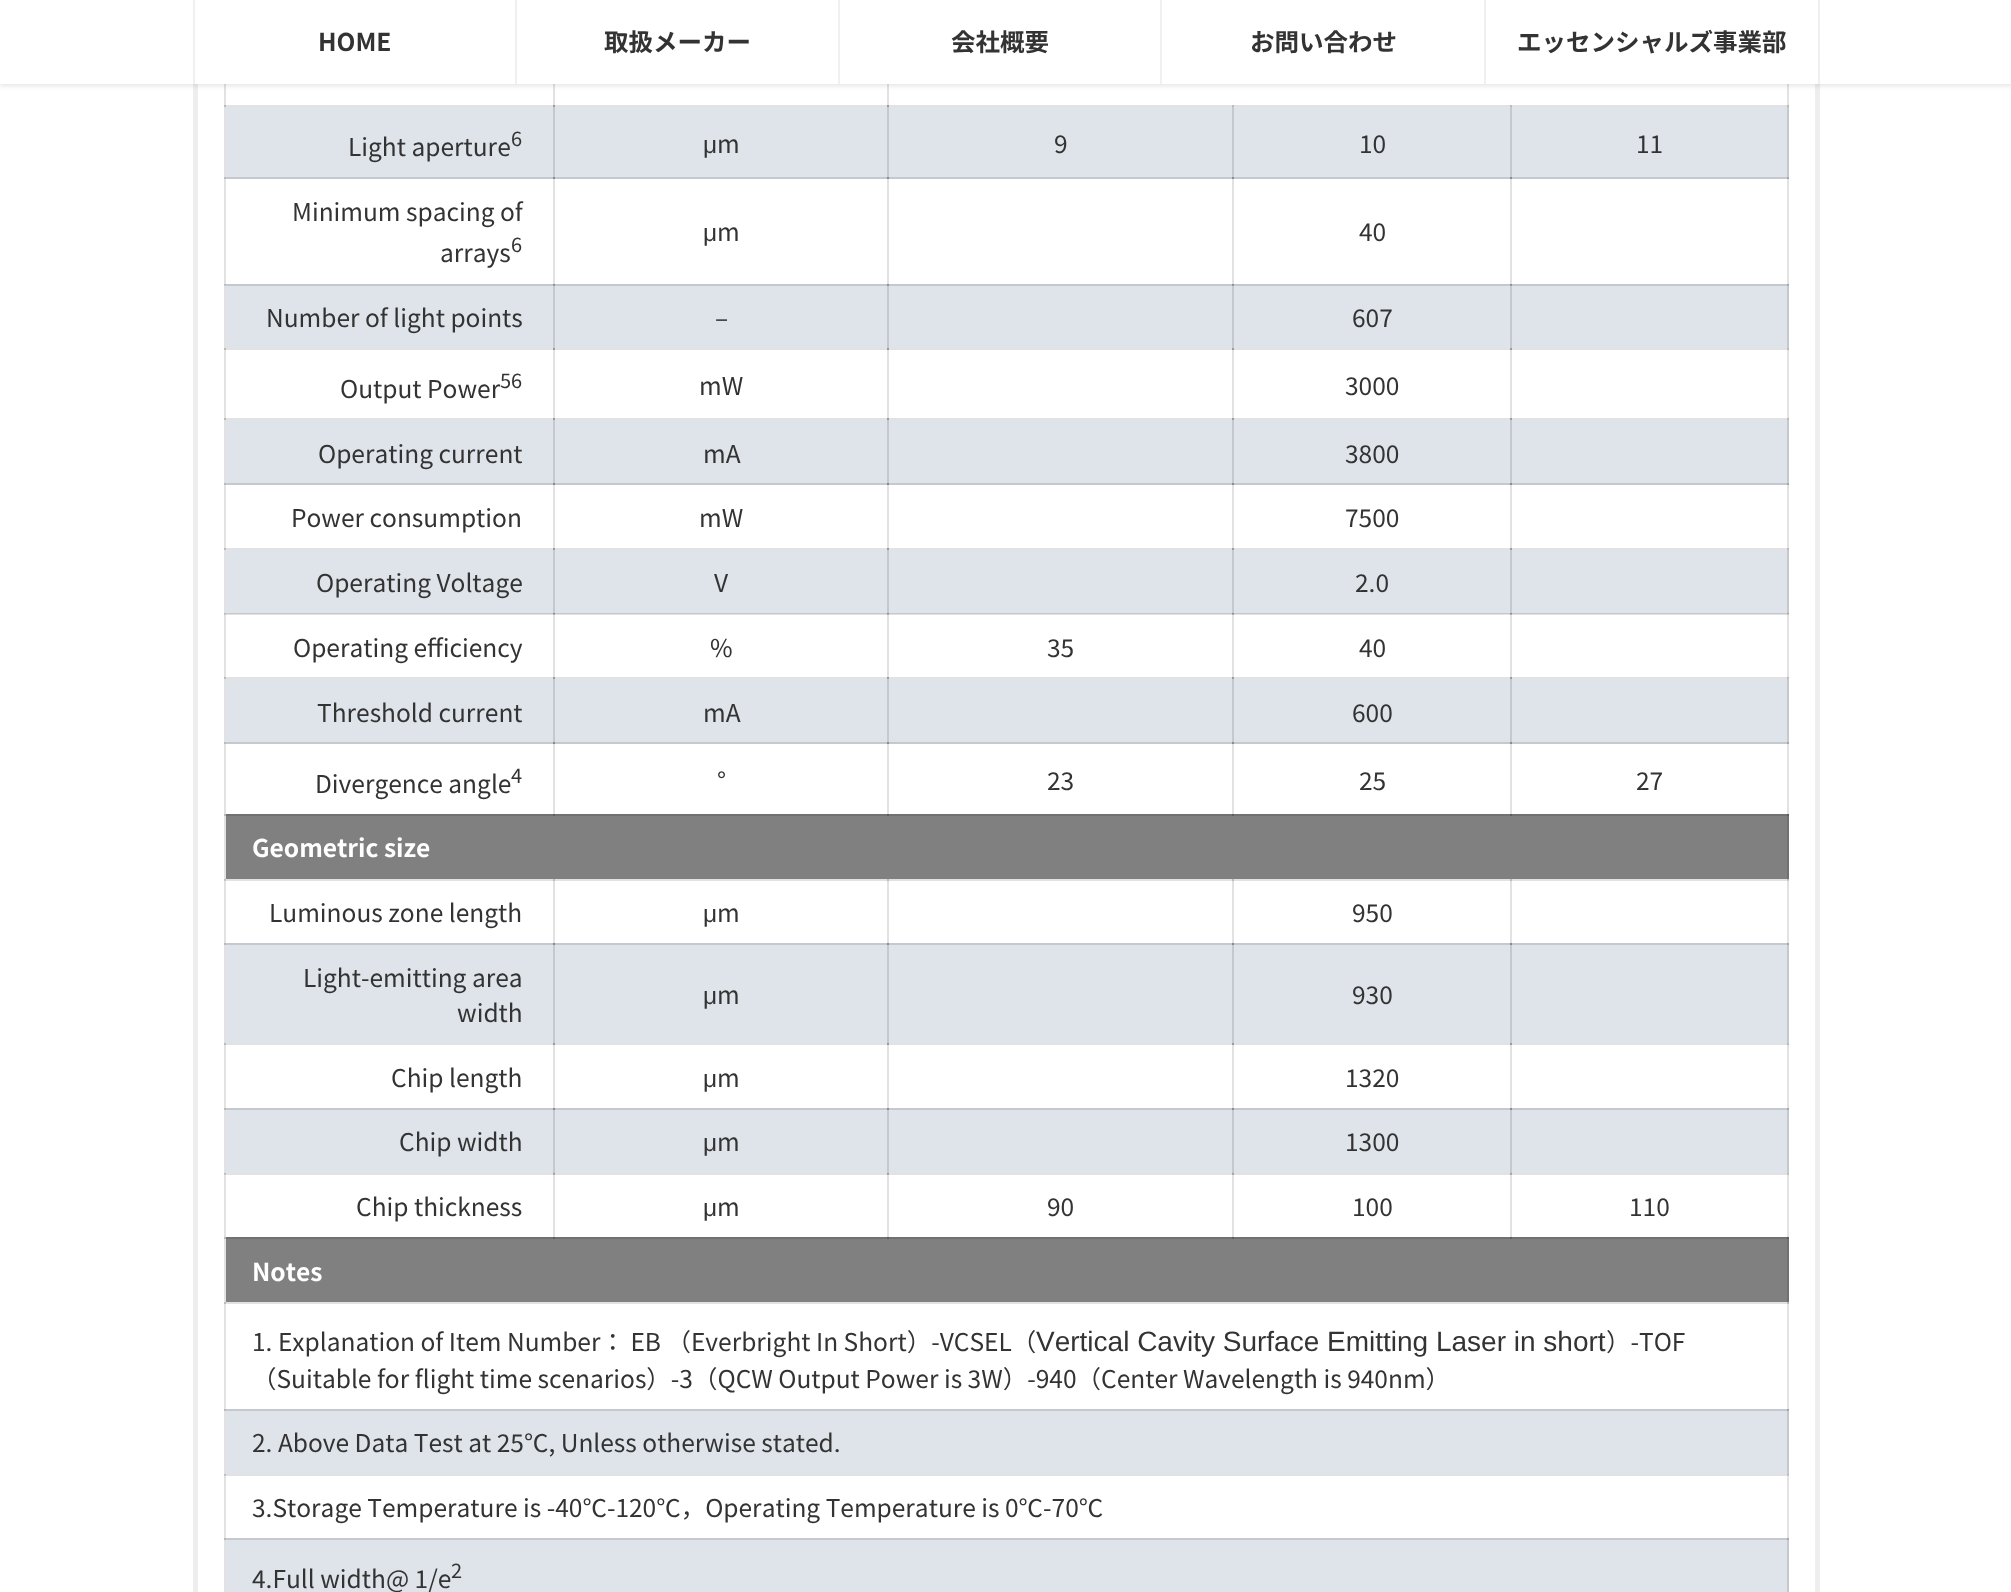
async function draw(canvas) {
  canvas.width = 2011;
  canvas.height = 1592;
  const ctx = canvas.getContext('2d');
  ctx.miterLimit = 4;
  ctx.fontKerning = 'none';
  function label(s, x, y, font, color) {
    ctx.font = font;
    ctx.fillStyle = color;
    ctx.fillText(s, x, y);
  }
  function rect(x, y, w, h, color) {
    ctx.fillStyle = color;
    ctx.fillRect(x, y, w, h);
  }

  rect(0, 0, 2011, 1592, '#fff');
  rect(193, 84, 1627, 1508, '#eee');
  rect(198, 84, 1617, 1508, '#fff');
  rect(553, 84, 2, 23, '#e2e2e2');
  rect(887, 84, 2, 23, '#e2e2e2');
  rect(224, 105, 1565, 2, '#e2e2e2');
  rect(1787, 84, 2, 23, '#e2e2e2');
  rect(224, 348, 331, 2, '#e2e2e2');
  rect(553, 348, 2, 72, '#e2e2e2');
  rect(553, 348, 336, 2, '#e2e2e2');
  rect(887, 348, 2, 72, '#e2e2e2');
  rect(887, 348, 347, 2, '#e2e2e2');
  rect(1232, 348, 2, 72, '#e2e2e2');
  rect(1232, 348, 280, 2, '#e2e2e2');
  rect(1510, 348, 2, 72, '#e2e2e2');
  rect(224, 418, 1565, 2, '#e2e2e2');
  rect(553, 483, 2, 67, '#e2e2e2');
  rect(887, 483, 2, 67, '#e2e2e2');
  rect(1232, 483, 2, 67, '#e2e2e2');
  rect(1510, 483, 2, 67, '#e2e2e2');
  rect(224, 548, 1565, 2, '#e2e2e2');
  rect(224, 614, 331, 1, '#e2e2e2');
  rect(553, 613, 2, 66, '#e2e2e2');
  rect(553, 614, 336, 1, '#e2e2e2');
  rect(887, 613, 2, 66, '#e2e2e2');
  rect(887, 614, 347, 1, '#e2e2e2');
  rect(1232, 613, 2, 66, '#e2e2e2');
  rect(1232, 614, 280, 1, '#e2e2e2');
  rect(1510, 613, 2, 66, '#e2e2e2');
  rect(224, 677, 1565, 2, '#e2e2e2');
  rect(224, 879, 331, 2, '#e2e2e2');
  rect(224, 1043, 331, 2, '#e2e2e2');
  rect(224, 1173, 331, 2, '#e2e2e2');
  rect(224, 1302, 1565, 2, '#e2e2e2');
  rect(224, 1474, 1565, 2, '#e2e2e2');
  rect(224, 84, 2, 1508, '#e2e2e2');
  ctx.fillStyle = '#0000001a';
  ctx.filter = 'blur(2.5px)';
  ctx.beginPath();
  ctx.rect(0, 2, 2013, 84);
  ctx.fill();
  ctx.filter = 'none';
  rect(0, 0, 2011, 84, '#fff');
  rect(515, 0, 2, 84, '#f0f0f0');
  rect(193, 0, 2, 84, '#f0f0f0');
  label('HOME', 318, 51, 'bold 24.5px Noto Sans JP', '#333');
  rect(838, 0, 2, 84, '#f0f0f0');
  label('取扱メーカー', 604, 51, 'bold 24.5px Noto Sans JP', '#333');
  rect(1160, 0, 2, 84, '#f0f0f0');
  label('会社概要', 951, 51, 'bold 24.5px Noto Sans JP', '#333');
  rect(1484, 0, 2, 84, '#f0f0f0');
  label('お問い合わせ', 1250, 51, 'bold 24.5px Noto Sans JP', '#333');
  rect(1818, 0, 2, 84, '#f0f0f0');
  label('エッセンシャルズ事業部', 1517, 51, 'bold 24.5px Noto Sans JP', '#333');
  rect(553, 105, 2, 2, '#9b9b9b');
  rect(887, 105, 2, 2, '#9b9b9b');
  rect(1232, 105, 2, 2, '#bbb');
  rect(1510, 105, 2, 2, '#bbb');
  rect(553, 177, 2, 108, '#e2e2e2');
  rect(887, 177, 2, 108, '#e2e2e2');
  rect(1232, 177, 2, 108, '#e2e2e2');
  rect(1510, 177, 2, 108, '#e2e2e2');
  rect(553, 348, 2, 2, '#9b9b9b');
  rect(887, 348, 2, 2, '#9b9b9b');
  rect(1232, 348, 2, 2, '#9b9b9b');
  rect(1510, 348, 279, 2, '#e2e2e2');
  rect(1510, 348, 2, 2, '#9b9b9b');
  rect(553, 418, 2, 2, '#9b9b9b');
  rect(887, 418, 2, 2, '#9b9b9b');
  rect(1232, 418, 2, 2, '#9b9b9b');
  rect(1510, 418, 2, 2, '#9b9b9b');
  rect(553, 548, 2, 2, '#9b9b9b');
  rect(887, 548, 2, 2, '#9b9b9b');
  rect(1232, 548, 2, 2, '#9b9b9b');
  rect(1510, 548, 2, 2, '#9b9b9b');
  rect(553, 614, 2, 1, '#b0b0b0');
  rect(887, 614, 2, 1, '#b0b0b0');
  rect(1232, 614, 2, 1, '#b0b0b0');
  rect(1510, 614, 279, 1, '#e2e2e2');
  rect(1510, 614, 2, 1, '#b0b0b0');
  rect(553, 677, 2, 2, '#9b9b9b');
  rect(887, 677, 2, 2, '#9b9b9b');
  rect(1232, 677, 2, 2, '#9b9b9b');
  rect(1510, 677, 2, 2, '#9b9b9b');
  rect(553, 742, 2, 74, '#e2e2e2');
  rect(887, 742, 2, 74, '#e2e2e2');
  rect(1232, 742, 2, 74, '#e2e2e2');
  rect(1510, 742, 2, 74, '#e2e2e2');
  rect(553, 879, 2, 66, '#e2e2e2');
  rect(553, 879, 336, 2, '#e2e2e2');
  rect(553, 879, 2, 2, '#bbb');
  rect(887, 879, 2, 66, '#e2e2e2');
  rect(887, 879, 347, 2, '#e2e2e2');
  rect(887, 879, 2, 2, '#bbb');
  rect(1232, 879, 2, 66, '#e2e2e2');
  rect(1232, 879, 280, 2, '#e2e2e2');
  rect(1232, 879, 2, 2, '#bbb');
  rect(1510, 879, 2, 66, '#e2e2e2');
  rect(1510, 879, 279, 2, '#e2e2e2');
  rect(1510, 879, 2, 2, '#bbb');
  rect(553, 1043, 2, 67, '#e2e2e2');
  rect(553, 1043, 336, 2, '#e2e2e2');
  rect(553, 1043, 2, 2, '#9b9b9b');
  rect(887, 1043, 2, 67, '#e2e2e2');
  rect(887, 1043, 347, 2, '#e2e2e2');
  rect(887, 1043, 2, 2, '#9b9b9b');
  rect(1232, 1043, 2, 67, '#e2e2e2');
  rect(1232, 1043, 280, 2, '#e2e2e2');
  rect(1232, 1043, 2, 2, '#9b9b9b');
  rect(1510, 1043, 2, 67, '#e2e2e2');
  rect(1510, 1043, 279, 2, '#e2e2e2');
  rect(1510, 1043, 2, 2, '#9b9b9b');
  rect(553, 1173, 2, 66, '#e2e2e2');
  rect(553, 1173, 336, 2, '#e2e2e2');
  rect(553, 1174, 2, 1, '#b0b0b0');
  rect(553, 1173, 2, 1, '#9b9b9b');
  rect(887, 1173, 2, 66, '#e2e2e2');
  rect(887, 1173, 347, 2, '#e2e2e2');
  rect(887, 1174, 2, 1, '#b0b0b0');
  rect(887, 1173, 2, 1, '#9b9b9b');
  rect(1232, 1173, 2, 66, '#e2e2e2');
  rect(1232, 1173, 280, 2, '#e2e2e2');
  rect(1232, 1174, 2, 1, '#b0b0b0');
  rect(1232, 1173, 2, 1, '#9b9b9b');
  rect(1510, 1173, 2, 66, '#e2e2e2');
  rect(1510, 1173, 279, 2, '#e2e2e2');
  rect(1510, 1174, 2, 1, '#b0b0b0');
  rect(1510, 1173, 2, 1, '#9b9b9b');
  rect(1787, 105, 2, 2, '#bbb');
  rect(1787, 177, 2, 108, '#e2e2e2');
  rect(1787, 348, 2, 72, '#e2e2e2');
  rect(1787, 348, 2, 2, '#bbb');
  rect(1787, 418, 2, 2, '#bbb');
  rect(1787, 483, 2, 67, '#e2e2e2');
  rect(1787, 548, 2, 2, '#bbb');
  rect(1787, 613, 2, 66, '#e2e2e2');
  rect(1787, 614, 2, 1, '#c7c7c7');
  rect(1787, 677, 2, 2, '#bbb');
  rect(1787, 742, 2, 74, '#e2e2e2');
  rect(1787, 879, 2, 66, '#e2e2e2');
  rect(1787, 880, 2, 1, '#c7c7c7');
  rect(1787, 879, 2, 1, '#bbb');
  rect(1787, 1043, 2, 67, '#e2e2e2');
  rect(1787, 1043, 2, 2, '#bbb');
  rect(1787, 1173, 2, 66, '#e2e2e2');
  rect(1787, 1174, 2, 1, '#c7c7c7');
  rect(1787, 1173, 2, 1, '#bbb');
  rect(1787, 1302, 2, 109, '#e2e2e2');
  rect(1787, 1302, 2, 2, '#bbb');
  rect(1787, 1474, 2, 66, '#e2e2e2');
  rect(1787, 1475, 2, 1, '#c7c7c7');
  rect(1787, 1474, 2, 1, '#bbb');
  rect(224, 105, 2, 2, '#bbb');
  rect(224, 177, 2, 2, '#bbb');
  rect(224, 285, 2, 1, '#c7c7c7');
  rect(224, 284, 2, 1, '#bbb');
  rect(224, 348, 2, 2, '#bbb');
  rect(224, 418, 2, 2, '#bbb');
  rect(224, 483, 2, 2, '#bbb');
  rect(224, 548, 2, 2, '#bbb');
  rect(224, 614, 2, 1, '#c7c7c7');
  rect(224, 613, 2, 1, '#bbb');
  rect(224, 677, 2, 2, '#bbb');
  rect(224, 742, 2, 2, '#bbb');
  rect(224, 814, 2, 2, '#bbb');
  rect(224, 880, 2, 1, '#c7c7c7');
  rect(224, 879, 2, 1, '#bbb');
  rect(224, 943, 2, 2, '#bbb');
  rect(224, 1043, 2, 2, '#bbb');
  rect(224, 1108, 2, 2, '#bbb');
  rect(224, 1174, 2, 1, '#c7c7c7');
  rect(224, 1173, 2, 1, '#bbb');
  rect(224, 1237, 2, 2, '#bbb');
  rect(224, 1302, 2, 2, '#bbb');
  rect(224, 1409, 2, 2, '#bbb');
  rect(224, 1475, 2, 1, '#c7c7c7');
  rect(224, 1474, 2, 1, '#bbb');
  rect(224, 1538, 2, 2, '#bbb');
  rect(226, 107, 327, 70, '#dfe4ea');
  rect(553, 107, 2, 72, '#c5c9cf');
  rect(226, 177, 661, 2, '#c5c9cf');
  rect(553, 177, 2, 2, '#888b8f');
  label('Light aperture', 348, 156, '24.5px Noto Sans JP', '#333');
  label('6', 511, 146, '20px Noto Sans JP', '#333');
  rect(555, 107, 332, 70, '#dfe4ea');
  label('μ', 703, 153, '24.5px Liberation Sans', '#333');
  label('m', 717, 153, '24.5px Noto Sans JP', '#333');
  rect(889, 107, 343, 70, '#dfe4ea');
  rect(887, 107, 2, 72, '#c5c9cf');
  rect(1232, 107, 2, 72, '#c5c9cf');
  rect(887, 177, 347, 2, '#c5c9cf');
  rect(887, 177, 2, 2, '#888b8f');
  rect(1232, 177, 2, 2, '#888b8f');
  label('9', 1054, 153, '24.5px Noto Sans JP', '#333');
  rect(1234, 107, 276, 70, '#dfe4ea');
  rect(1510, 107, 2, 72, '#c5c9cf');
  rect(1234, 177, 555, 2, '#c5c9cf');
  rect(1510, 177, 2, 2, '#888b8f');
  label('10', 1359, 153, '24.5px Noto Sans JP', '#333');
  rect(1512, 107, 275, 70, '#dfe4ea');
  rect(1787, 107, 2, 72, '#c5c9cf');
  rect(1787, 177, 2, 2, '#a4a7ac');
  label('11', 1636, 153, '24.5px Noto Sans JP', '#333');
  label('Minimum spacing of', 292, 221, '24.5px Noto Sans JP', '#333');
  label('6', 511, 252, '20px Noto Sans JP', '#333');
  label('arrays', 440, 262, '24.5px Noto Sans JP', '#333');
  label('μ', 703, 241, '24.5px Liberation Sans', '#333');
  label('m', 717, 241, '24.5px Noto Sans JP', '#333');
  label('40', 1359, 241, '24.5px Noto Sans JP', '#333');
  rect(889, 286, 343, 62, '#dfe4ea');
  rect(887, 284, 2, 64, '#c5c9cf');
  rect(887, 284, 902, 2, '#c5c9cf');
  rect(887, 285, 2, 1, '#9a9da2');
  rect(887, 284, 2, 1, '#888b8f');
  rect(1232, 284, 2, 64, '#c5c9cf');
  rect(1232, 285, 2, 1, '#9a9da2');
  rect(1232, 284, 2, 1, '#888b8f');
  rect(226, 286, 327, 62, '#dfe4ea');
  rect(226, 284, 661, 2, '#c5c9cf');
  rect(553, 284, 2, 64, '#c5c9cf');
  rect(553, 285, 2, 1, '#9a9da2');
  rect(553, 284, 2, 1, '#888b8f');
  label('Number of light points', 266, 327, '24.5px Noto Sans JP', '#333');
  rect(555, 286, 332, 62, '#dfe4ea');
  label('–', 715, 327, '24.5px Noto Sans JP', '#333');
  rect(1234, 286, 276, 62, '#dfe4ea');
  rect(1510, 284, 2, 64, '#c5c9cf');
  rect(1510, 285, 2, 1, '#9a9da2');
  rect(1510, 284, 2, 1, '#888b8f');
  label('607', 1352, 327, '24.5px Noto Sans JP', '#333');
  rect(1512, 286, 275, 62, '#dfe4ea');
  rect(1787, 284, 2, 64, '#c5c9cf');
  rect(1787, 285, 2, 1, '#aeb2b7');
  rect(1787, 284, 2, 1, '#a4a7ac');
  label('Output Power', 340, 398, '24.5px Noto Sans JP', '#333');
  label('56', 500, 388, '20px Noto Sans JP', '#333');
  label('mW', 699, 395, '24.5px Noto Sans JP', '#333');
  label('3000', 1345, 395, '24.5px Noto Sans JP', '#333');
  rect(226, 420, 327, 63, '#dfe4ea');
  rect(553, 420, 2, 65, '#c5c9cf');
  rect(226, 483, 661, 2, '#c5c9cf');
  rect(553, 483, 2, 2, '#888b8f');
  label('Operating current', 318, 463, '24.5px Noto Sans JP', '#333');
  rect(555, 420, 332, 63, '#dfe4ea');
  label('mA', 703, 463, '24.5px Noto Sans JP', '#333');
  rect(889, 420, 343, 63, '#dfe4ea');
  rect(887, 420, 2, 65, '#c5c9cf');
  rect(1232, 420, 2, 65, '#c5c9cf');
  rect(887, 483, 347, 2, '#c5c9cf');
  rect(887, 483, 2, 2, '#888b8f');
  rect(1232, 483, 2, 2, '#888b8f');
  rect(1234, 420, 276, 63, '#dfe4ea');
  rect(1510, 420, 2, 65, '#c5c9cf');
  rect(1234, 483, 555, 2, '#c5c9cf');
  rect(1510, 483, 2, 2, '#888b8f');
  label('3800', 1345, 463, '24.5px Noto Sans JP', '#333');
  rect(1512, 420, 275, 63, '#dfe4ea');
  rect(1787, 420, 2, 65, '#c5c9cf');
  rect(1787, 483, 2, 2, '#a4a7ac');
  label('Power consumption', 291, 527, '24.5px Noto Sans JP', '#333');
  label('mW', 699, 527, '24.5px Noto Sans JP', '#333');
  label('7500', 1345, 527, '24.5px Noto Sans JP', '#333');
  rect(226, 550, 327, 63, '#dfe4ea');
  rect(553, 550, 2, 64, '#c5c9cf');
  rect(226, 613, 661, 1, '#c5c9cf');
  rect(553, 613, 2, 1, '#888b8f');
  label('Operating Voltage', 316, 592, '24.5px Noto Sans JP', '#333');
  rect(555, 550, 332, 63, '#dfe4ea');
  label('V', 714, 592, '24.5px Noto Sans JP', '#333');
  rect(889, 550, 343, 63, '#dfe4ea');
  rect(887, 550, 2, 64, '#c5c9cf');
  rect(1232, 550, 2, 64, '#c5c9cf');
  rect(887, 613, 347, 1, '#c5c9cf');
  rect(887, 613, 2, 1, '#888b8f');
  rect(1232, 613, 2, 1, '#888b8f');
  rect(1234, 550, 276, 63, '#dfe4ea');
  rect(1510, 550, 2, 64, '#c5c9cf');
  rect(1234, 613, 555, 1, '#c5c9cf');
  rect(1510, 613, 2, 1, '#888b8f');
  label('2.0', 1355, 592, '24.5px Noto Sans JP', '#333');
  rect(1512, 550, 275, 63, '#dfe4ea');
  rect(1787, 550, 2, 64, '#c5c9cf');
  rect(1787, 613, 2, 1, '#a4a7ac');
  label('Operating efficiency', 293, 657, '24.5px Noto Sans JP', '#333');
  label('%', 710, 657, '24.5px Noto Sans JP', '#333');
  label('35', 1047, 657, '24.5px Noto Sans JP', '#333');
  label('40', 1359, 657, '24.5px Noto Sans JP', '#333');
  rect(226, 679, 327, 63, '#dfe4ea');
  rect(553, 679, 2, 65, '#c5c9cf');
  rect(226, 742, 661, 2, '#c5c9cf');
  rect(553, 742, 2, 2, '#888b8f');
  label('Threshold current', 317, 722, '24.5px Noto Sans JP', '#333');
  rect(555, 679, 332, 63, '#dfe4ea');
  label('mA', 703, 722, '24.5px Noto Sans JP', '#333');
  rect(889, 679, 343, 63, '#dfe4ea');
  rect(887, 679, 2, 65, '#c5c9cf');
  rect(1232, 679, 2, 65, '#c5c9cf');
  rect(887, 742, 347, 2, '#c5c9cf');
  rect(887, 742, 2, 2, '#888b8f');
  rect(1232, 742, 2, 2, '#888b8f');
  rect(1234, 679, 276, 63, '#dfe4ea');
  rect(1510, 679, 2, 65, '#c5c9cf');
  rect(1234, 742, 555, 2, '#c5c9cf');
  rect(1510, 742, 2, 2, '#888b8f');
  label('600', 1352, 722, '24.5px Noto Sans JP', '#333');
  rect(1512, 679, 275, 63, '#dfe4ea');
  rect(1787, 679, 2, 65, '#c5c9cf');
  rect(1787, 742, 2, 2, '#a4a7ac');
  label('Divergence angle', 315, 793, '24.5px Noto Sans JP', '#333');
  label('4', 511, 783, '20px Noto Sans JP', '#333');
  label('°', 717, 790, '24.5px Noto Sans JP', '#333');
  label('23', 1047, 790, '24.5px Noto Sans JP', '#333');
  label('25', 1359, 790, '24.5px Noto Sans JP', '#333');
  label('27', 1636, 790, '24.5px Noto Sans JP', '#333');
  rect(226, 816, 1561, 63, '#808080');
  rect(226, 814, 1563, 2, '#717171');
  rect(553, 814, 2, 2, '#5e5e5e');
  rect(887, 814, 2, 2, '#5e5e5e');
  rect(1232, 814, 2, 2, '#5e5e5e');
  rect(1510, 814, 2, 2, '#5e5e5e');
  rect(1787, 814, 2, 65, '#717171');
  rect(1787, 814, 2, 2, '#5e5e5e');
  label('Geometric size', 252, 857, 'bold 24.5px Noto Sans JP', '#fff');
  label('Luminous zone length', 269, 922, '24.5px Noto Sans JP', '#333');
  label('μ', 703, 922, '24.5px Liberation Sans', '#333');
  label('m', 717, 922, '24.5px Noto Sans JP', '#333');
  label('950', 1352, 922, '24.5px Noto Sans JP', '#333');
  rect(889, 945, 343, 98, '#dfe4ea');
  rect(887, 943, 2, 100, '#c5c9cf');
  rect(887, 943, 902, 2, '#c5c9cf');
  rect(887, 943, 2, 2, '#888b8f');
  rect(1232, 943, 2, 100, '#c5c9cf');
  rect(1232, 943, 2, 2, '#888b8f');
  rect(226, 945, 327, 98, '#dfe4ea');
  rect(226, 943, 661, 2, '#c5c9cf');
  rect(553, 943, 2, 100, '#c5c9cf');
  rect(553, 943, 2, 2, '#888b8f');
  label('Light-emitting area', 303, 987, '24.5px Noto Sans JP', '#333');
  label('width', 457, 1022, '24.5px Noto Sans JP', '#333');
  rect(555, 945, 332, 98, '#dfe4ea');
  label('μ', 703, 1004, '24.5px Liberation Sans', '#333');
  label('m', 717, 1004, '24.5px Noto Sans JP', '#333');
  rect(1234, 945, 276, 98, '#dfe4ea');
  rect(1510, 943, 2, 100, '#c5c9cf');
  rect(1510, 943, 2, 2, '#888b8f');
  label('930', 1352, 1004, '24.5px Noto Sans JP', '#333');
  rect(1512, 945, 275, 98, '#dfe4ea');
  rect(1787, 943, 2, 100, '#c5c9cf');
  rect(1787, 943, 2, 2, '#a4a7ac');
  label('Chip length', 391, 1087, '24.5px Noto Sans JP', '#333');
  label('μ', 703, 1087, '24.5px Liberation Sans', '#333');
  label('m', 717, 1087, '24.5px Noto Sans JP', '#333');
  label('1320', 1345, 1087, '24.5px Noto Sans JP', '#333');
  rect(889, 1110, 343, 63, '#dfe4ea');
  rect(887, 1108, 2, 65, '#c5c9cf');
  rect(887, 1108, 902, 2, '#c5c9cf');
  rect(887, 1108, 2, 2, '#888b8f');
  rect(1232, 1108, 2, 65, '#c5c9cf');
  rect(1232, 1108, 2, 2, '#888b8f');
  rect(226, 1110, 327, 63, '#dfe4ea');
  rect(226, 1108, 661, 2, '#c5c9cf');
  rect(553, 1108, 2, 65, '#c5c9cf');
  rect(553, 1108, 2, 2, '#888b8f');
  label('Chip width', 399, 1151, '24.5px Noto Sans JP', '#333');
  rect(555, 1110, 332, 63, '#dfe4ea');
  label('μ', 703, 1151, '24.5px Liberation Sans', '#333');
  label('m', 717, 1151, '24.5px Noto Sans JP', '#333');
  rect(1234, 1110, 276, 63, '#dfe4ea');
  rect(1510, 1108, 2, 65, '#c5c9cf');
  rect(1510, 1108, 2, 2, '#888b8f');
  label('1300', 1345, 1151, '24.5px Noto Sans JP', '#333');
  rect(1512, 1110, 275, 63, '#dfe4ea');
  rect(1787, 1108, 2, 65, '#c5c9cf');
  rect(1787, 1108, 2, 2, '#a4a7ac');
  label('Chip thickness', 356, 1216, '24.5px Noto Sans JP', '#333');
  label('μ', 703, 1216, '24.5px Liberation Sans', '#333');
  label('m', 717, 1216, '24.5px Noto Sans JP', '#333');
  label('90', 1047, 1216, '24.5px Noto Sans JP', '#333');
  label('100', 1352, 1216, '24.5px Noto Sans JP', '#333');
  label('110', 1629, 1216, '24.5px Noto Sans JP', '#333');
  rect(226, 1239, 1561, 63, '#808080');
  rect(226, 1237, 1563, 2, '#717171');
  rect(553, 1237, 2, 2, '#5e5e5e');
  rect(887, 1237, 2, 2, '#5e5e5e');
  rect(1232, 1237, 2, 2, '#5e5e5e');
  rect(1510, 1237, 2, 2, '#5e5e5e');
  rect(1787, 1237, 2, 65, '#717171');
  rect(1787, 1237, 2, 2, '#5e5e5e');
  label('Notes', 252, 1281, 'bold 24.5px Noto Sans JP', '#fff');
  label('1. Explanation of Item Number： EB （Everbright In Short）-VCSEL（', 252, 1351, '24.5px Noto Sans JP', '#333');
  label('Vertical Cavity Surface Emitting Laser in short', 1036, 1351, '28px Liberation Sans', '#333');
  label('）-TOF', 1606, 1351, '24.5px Noto Sans JP', '#333');
  label('（Suitable for flight time scenarios）-3（QCW Output Power is 3W）-940（Center Wavelength is 940nm）', 252, 1388, '24.5px Noto Sans JP', '#333');
  rect(226, 1411, 1561, 63, '#dfe4ea');
  rect(226, 1409, 1563, 2, '#c5c9cf');
  rect(1787, 1409, 2, 65, '#c5c9cf');
  rect(1787, 1409, 2, 2, '#a4a7ac');
  label('2. Above Data Test at 25℃, Unless otherwise stated.', 252, 1452, '24.5px Noto Sans JP', '#333');
  label('3.Storage Temperature', 252, 1517, '24.5px Noto Sans JP', '#333');
  label('is -40℃-120℃，Operating Temperature is 0℃-70℃', 523, 1517, '24.5px Noto Sans JP', '#333');
  rect(226, 1540, 1561, 52, '#dfe4ea');
  rect(226, 1538, 1563, 2, '#c5c9cf');
  rect(1787, 1538, 2, 54, '#c5c9cf');
  rect(1787, 1538, 2, 2, '#a4a7ac');
  label('4.Full width@ 1/e', 252, 1588, '24.5px Noto Sans JP', '#333');
  label('2', 451, 1578, '20px Noto Sans JP', '#333');
}

draw(document.querySelector('canvas'));
